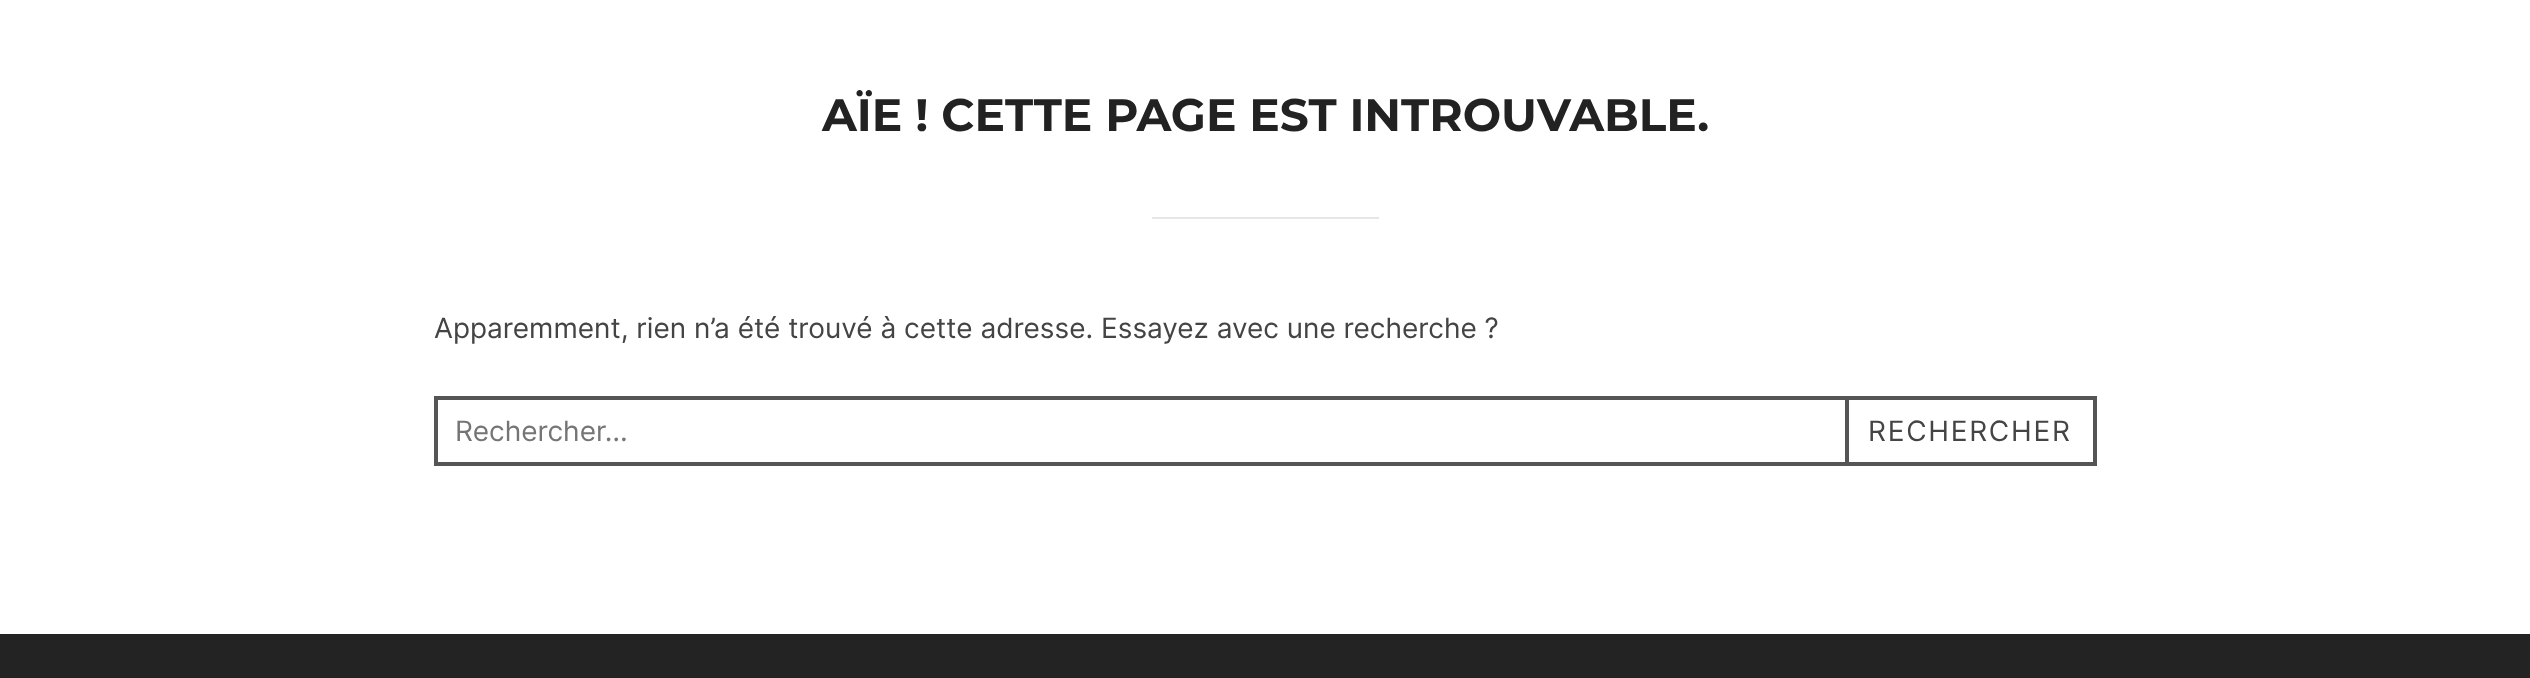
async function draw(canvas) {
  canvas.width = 2530;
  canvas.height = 678;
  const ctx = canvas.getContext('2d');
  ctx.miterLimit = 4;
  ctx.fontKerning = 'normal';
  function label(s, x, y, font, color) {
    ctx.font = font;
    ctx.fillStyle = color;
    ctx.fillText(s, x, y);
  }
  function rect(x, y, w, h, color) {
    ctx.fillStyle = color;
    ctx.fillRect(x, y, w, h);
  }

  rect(0, 0, 2530, 678, '#fff');
  label('AÏE ! CETTE PAGE EST INTROUVABLE.', 822, 131, 'bold 45.5px Montserrat', '#222');
  rect(1152, 217, 227, 2, '#e6e6e6');
  label('Apparemment, rien n’a été trouvé à cette adresse. Essayez avec une recherche ?', 434, 338, '28px Inter', '#444');
  ctx.strokeStyle = '#565555';
  ctx.lineWidth = 4;
  ctx.strokeRect(436, 398, 1659, 66);
  label('Rechercher…', 455, 441, '28px Inter', '#757575');
  ctx.strokeRect(1847, 398, 248, 66);
  ctx.letterSpacing = '1.75px';
  label('RECHERCHER', 1868, 441, '28px Inter', '#444');
  rect(0, 634, 2530, 44, '#232323');
}

draw(document.querySelector('canvas'));
